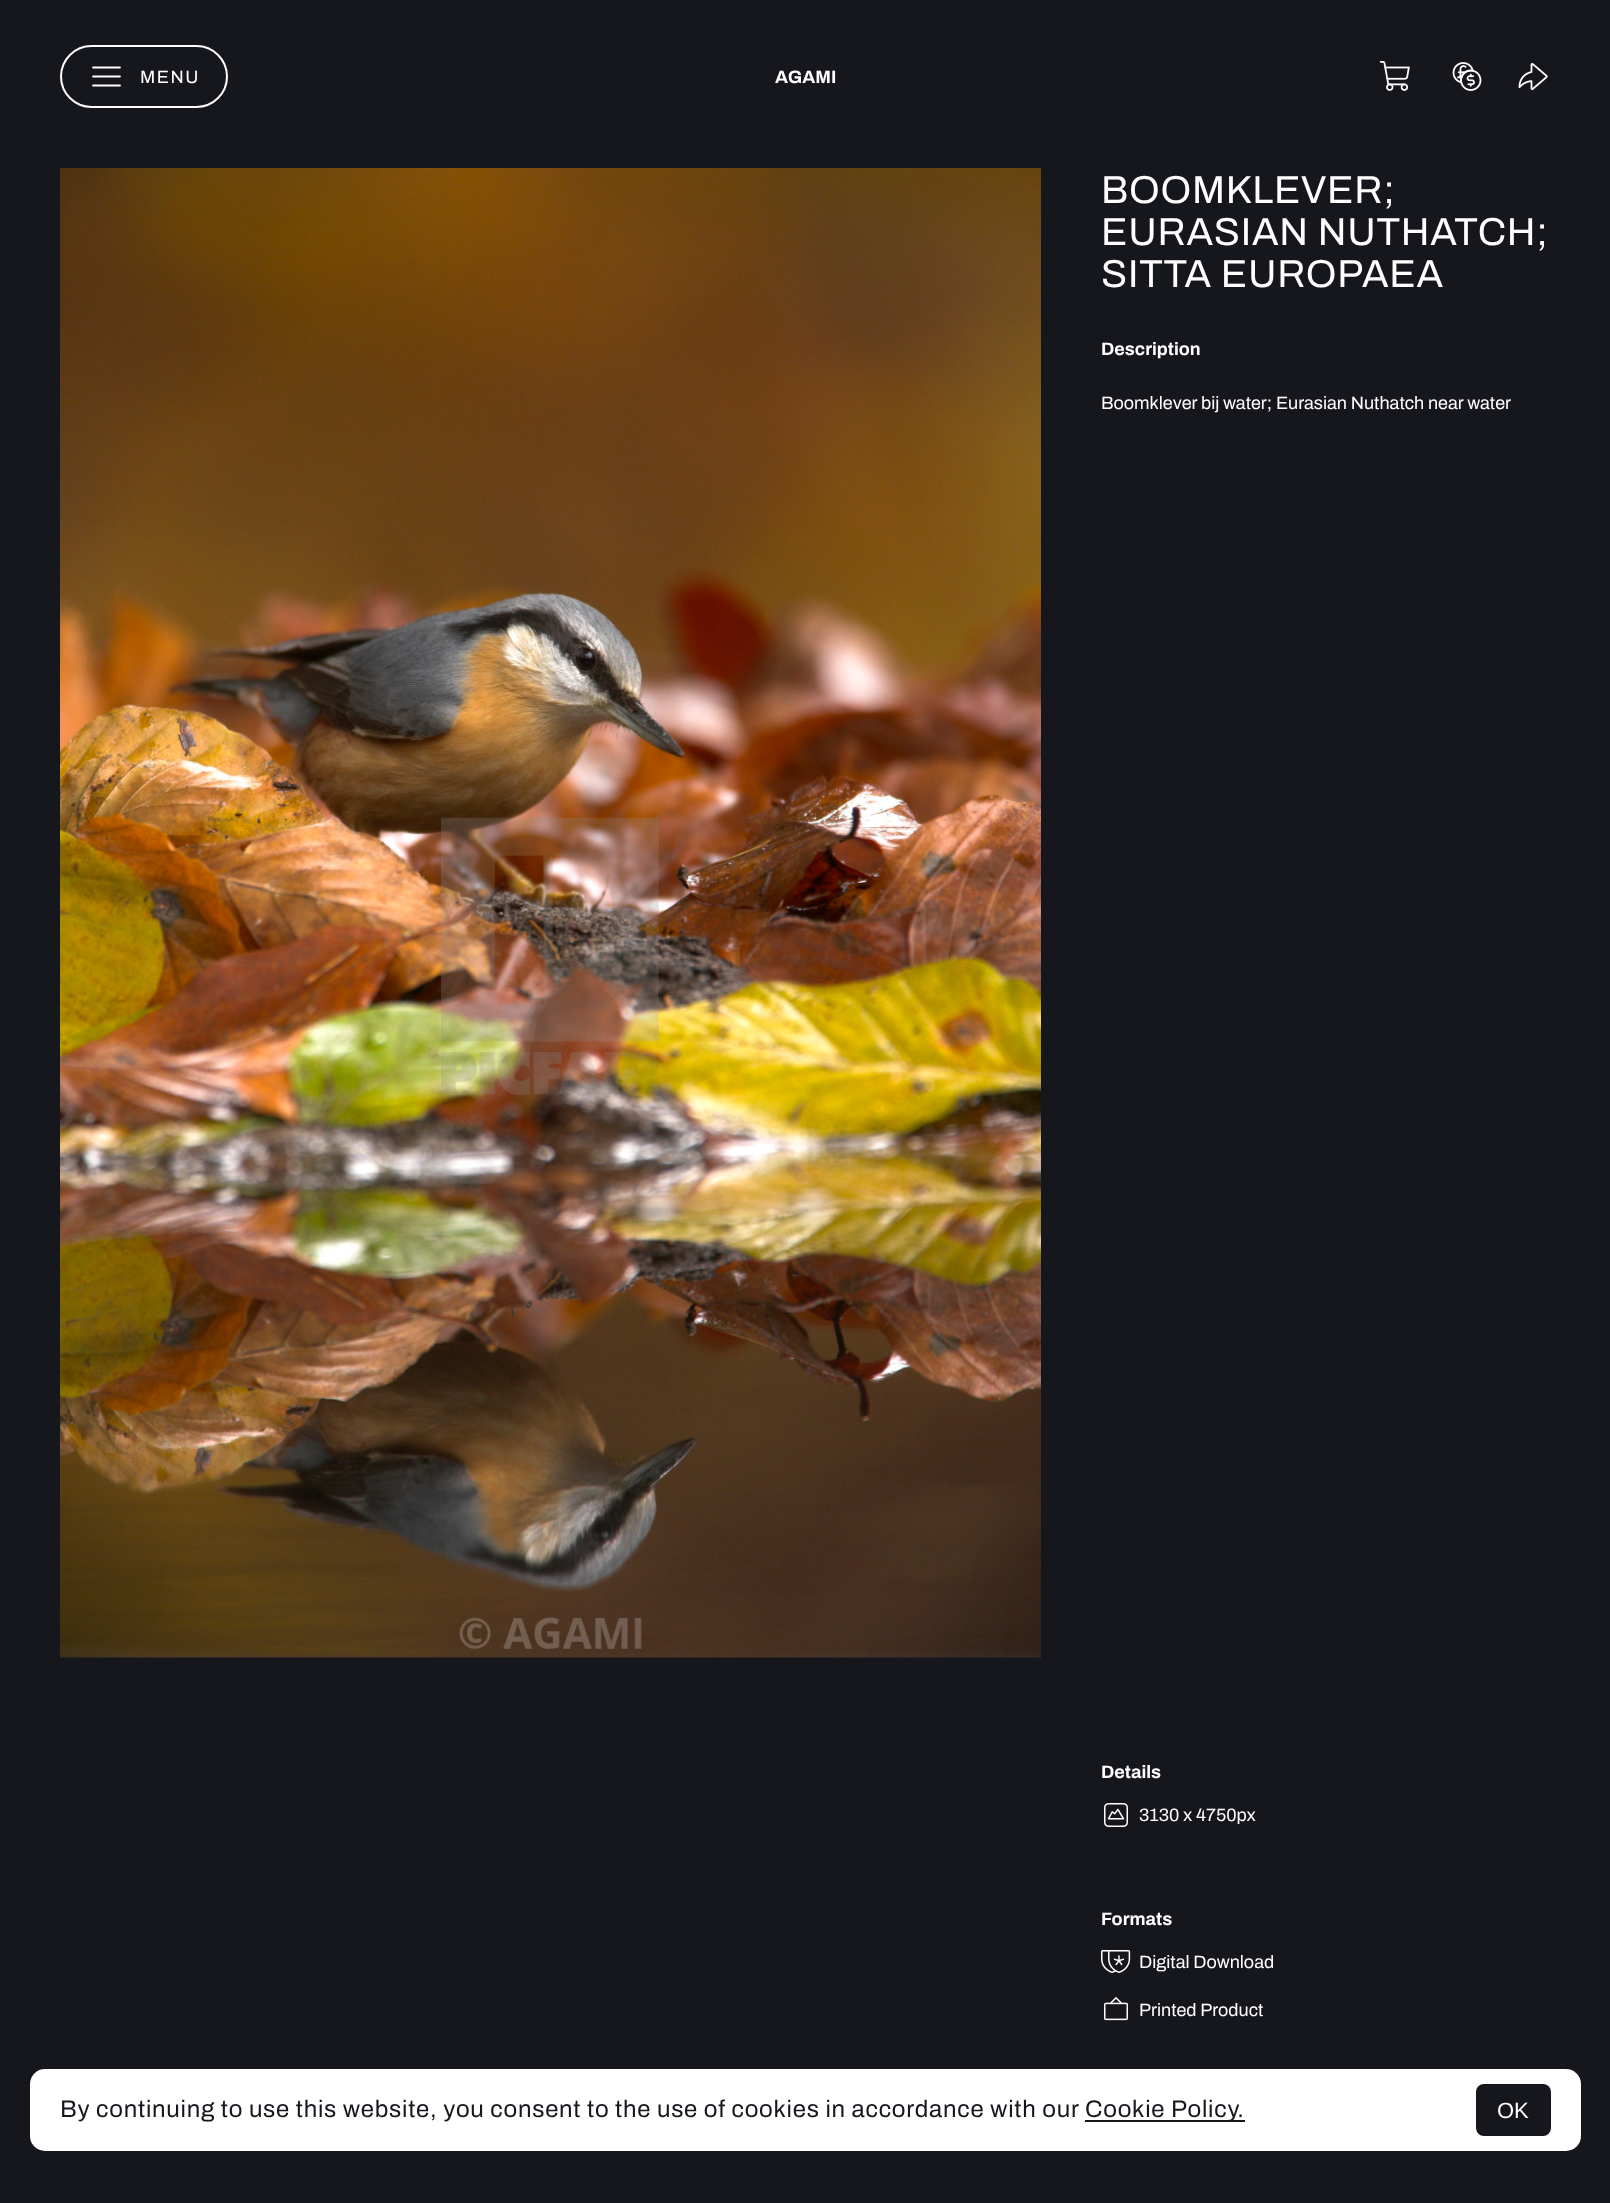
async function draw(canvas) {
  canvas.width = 1610;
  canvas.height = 2203;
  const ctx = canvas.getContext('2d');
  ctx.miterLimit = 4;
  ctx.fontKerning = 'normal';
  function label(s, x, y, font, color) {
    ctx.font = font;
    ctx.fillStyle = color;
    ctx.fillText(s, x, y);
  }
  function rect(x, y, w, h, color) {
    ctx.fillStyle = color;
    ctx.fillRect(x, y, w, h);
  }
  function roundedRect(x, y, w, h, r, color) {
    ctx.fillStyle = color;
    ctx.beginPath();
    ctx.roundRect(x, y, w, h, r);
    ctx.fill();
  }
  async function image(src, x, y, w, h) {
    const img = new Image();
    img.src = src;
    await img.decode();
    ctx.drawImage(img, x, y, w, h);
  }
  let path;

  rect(0, 0, 1610, 2203, '#16161d');
  ctx.beginPath();
  ctx.roundRect(61, 46, 166, 61, 30.5);
  ctx.strokeStyle = '#fff';
  ctx.lineWidth = 2;
  ctx.stroke();
  path = new Path2D('M93 76.5H120M93 67.5H120M93 85.5H120');
  ctx.lineWidth = 1.8;
  ctx.lineCap = 'round';
  ctx.lineJoin = 'round';
  ctx.stroke(path);
  ctx.letterSpacing = '1.5px';
  label('MENU', 140, 83, '18px Archivo', '#fff');
  ctx.letterSpacing = '0px';
  label('AGAMI', 775, 83, 'bold 18px Archivo', '#fff');
  await image('assets/img1.png', 1379, 61, 31, 30);
  await image('assets/img2.png', 1452, 62, 30, 29);
  await image('assets/img3.png', 1518, 63, 30, 27);
  await image('assets/img4.png', 60, 168, 981, 1490);
  ctx.letterSpacing = '0.75px';
  label('BOOMKLEVER;', 1101, 203, '39px Archivo', '#fff');
  label('EURASIAN NUTHATCH;', 1101, 245, '39px Archivo', '#fff');
  label('SITTA EUROPAEA', 1101, 287, '39px Archivo', '#fff');
  ctx.letterSpacing = '0px';
  label('Description', 1101, 355, 'bold 18px Archivo', '#fff');
  label('Boomklever bij water; Eurasian Nuthatch near water', 1101, 409, '18px Archivo', '#fff');
  label('Details', 1101, 1778, 'bold 18px Archivo', '#fff');
  await image('assets/img5.png', 1104, 1803, 24, 24);
  label('3130 x 4750px', 1139, 1821, '18px Archivo', '#fff');
  label('Formats', 1101, 1925, 'bold 18px Archivo', '#fff');
  await image('assets/img6.png', 1101, 1950, 30, 23);
  label('Digital Download', 1139, 1968, '18px Archivo', '#fff');
  await image('assets/img7.png', 1104, 1997, 24, 24);
  label('Printed Product', 1139, 2016, '18px Archivo', '#fff');
  roundedRect(30, 2069, 1551, 82, 15, '#fff');
  ctx.letterSpacing = '0.75px';
  label('By continuing to use this website, you consent to the use of cookies in accordance with our', 60, 2117, '24px Archivo', '#16161d');
  rect(1085, 2120, 160, 2, '#16161d');
  label('Cookie Policy.', 1085, 2117, '24px Archivo', '#16161d');
  roundedRect(1476, 2084, 75, 52, 8, '#16161d');
  ctx.letterSpacing = '0px';
  label('OK', 1497, 2118, '22px Liberation Sans', '#fff');
}

draw(document.querySelector('canvas'));
